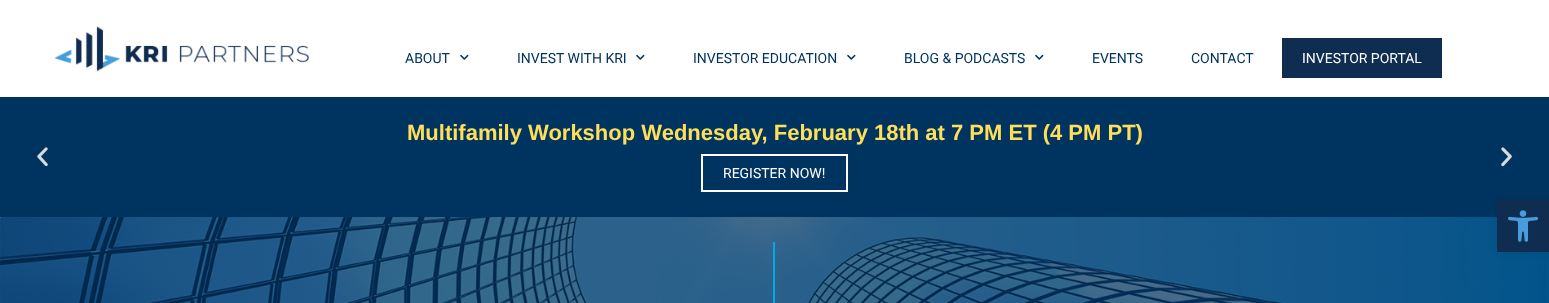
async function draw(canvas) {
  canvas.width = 1549;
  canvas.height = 303;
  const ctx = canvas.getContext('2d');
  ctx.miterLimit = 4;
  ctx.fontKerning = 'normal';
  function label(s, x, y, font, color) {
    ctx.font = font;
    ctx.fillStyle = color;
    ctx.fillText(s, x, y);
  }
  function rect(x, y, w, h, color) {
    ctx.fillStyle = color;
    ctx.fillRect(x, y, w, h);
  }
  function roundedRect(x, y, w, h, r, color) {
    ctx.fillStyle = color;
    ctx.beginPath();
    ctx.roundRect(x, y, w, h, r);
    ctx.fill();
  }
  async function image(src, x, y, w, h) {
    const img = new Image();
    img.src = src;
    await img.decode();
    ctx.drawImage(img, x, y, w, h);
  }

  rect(0, 0, 1549, 303, '#fff');
  await image('assets/img1.png', 54, 26, 255, 46);
  label('ABOUT', 405, 63, '14px Roboto', '#003460');
  await image('assets/img2.png', 460, 54, 9, 6);
  label('INVEST WITH KRI', 517, 63, '14px Roboto', '#003460');
  await image('assets/img2.png', 636, 54, 9, 6);
  label('INVESTOR EDUCATION', 693, 63, '14px Roboto', '#003460');
  await image('assets/img2.png', 847, 54, 9, 6);
  label('BLOG & PODCASTS', 904, 63, '14px Roboto', '#003460');
  await image('assets/img2.png', 1035, 54, 9, 6);
  label('EVENTS', 1092, 63, '14px Roboto', '#003460');
  label('CONTACT', 1191, 63, '14px Roboto', '#003460');
  rect(1282, 38, 160, 40, '#0f2c51');
  label('INVESTOR PORTAL', 1302, 63, '14px Roboto', '#fff');
  rect(0, 97, 1549, 120, '#003460');
  await image('assets/img3.png', 37, 147, 11, 20);
  label('Multifamily Workshop Wednesday, February 18th at 7 PM ET (4 PM PT)', 407, 140, 'bold 22px Liberation Sans', '#ffde59');
  ctx.strokeStyle = '#fff';
  ctx.lineWidth = 2;
  ctx.strokeRect(702, 155, 145, 36);
  label('REGISTER NOW!', 723, 178, '14px Roboto', '#fff');
  await image('assets/img4.png', 1501, 147, 11, 20);
  await image('assets/img6.png', 0, 217, 1549, 86);
  roundedRect(0, 217, 1549, 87, 1, '#003460ba');
  ctx.fillStyle = '#0000001a';
  ctx.filter = 'blur(5px)';
  ctx.beginPath();
  ctx.rect(1497, 200, 52, 52);
  ctx.fill();
  ctx.filter = 'none';
  rect(1497, 200, 52, 52, '#0f2c51');
  await image('assets/img5.png', 1508, 210, 30, 32);
  rect(773, 242, 2, 61, '#00aae7');
}

draw(document.querySelector('canvas'));
